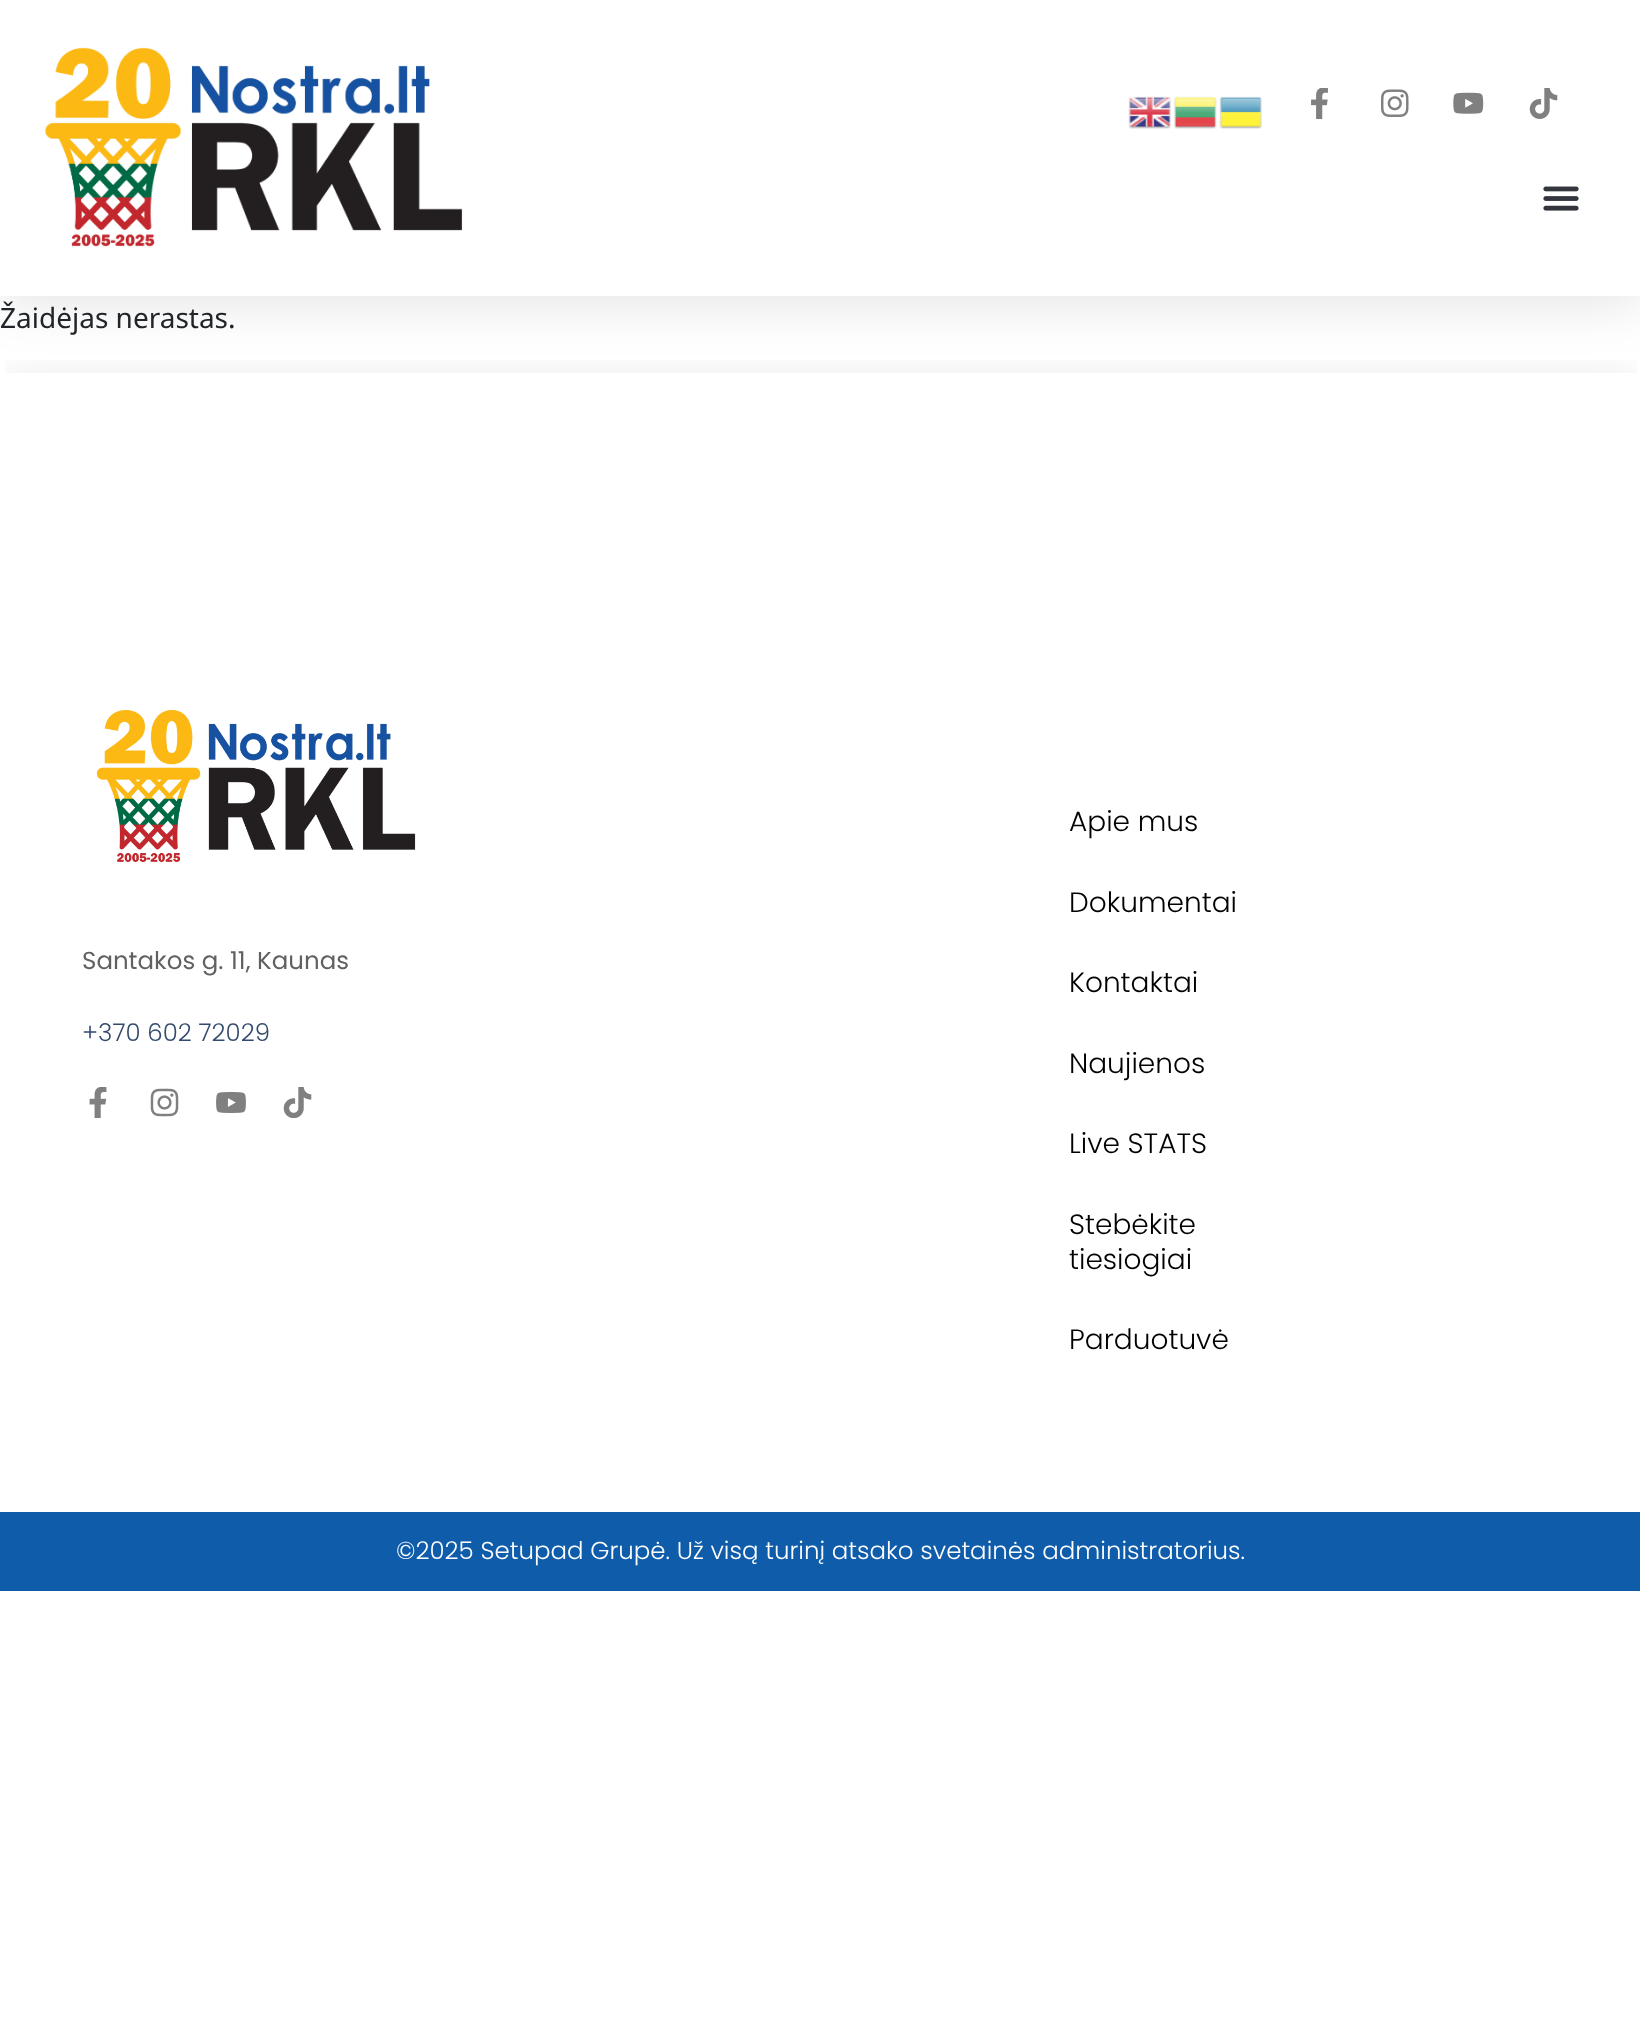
async function draw(canvas) {
  canvas.width = 1640;
  canvas.height = 2018;
  const ctx = canvas.getContext('2d');
  ctx.miterLimit = 4;
  ctx.fontKerning = 'normal';
  function label(s, x, y, font, color) {
    ctx.font = font;
    ctx.fillStyle = color;
    ctx.fillText(s, x, y);
  }
  function rect(x, y, w, h, color) {
    ctx.fillStyle = color;
    ctx.fillRect(x, y, w, h);
  }
  async function image(src, x, y, w, h) {
    const img = new Image();
    img.src = src;
    await img.decode();
    ctx.drawImage(img, x, y, w, h);
  }

  rect(0, 0, 1640, 2018, '#fff');
  ctx.fillStyle = '#0000001a';
  ctx.filter = 'blur(26px)';
  ctx.beginPath();
  ctx.rect(0, 9, 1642, 296);
  ctx.fill();
  ctx.filter = 'none';
  rect(0, 0, 1640, 296, '#fff');
  await image('assets/img1.png', 44, 47, 419, 200);
  await image('assets/img2.png', 1128, 96, 43, 33);
  await image('assets/img3.png', 1174, 96, 43, 33);
  await image('assets/img4.png', 1219, 96, 43, 33);
  await image('assets/img5.png', 1311, 88, 17, 31);
  await image('assets/img6.png', 1381, 89, 28, 28);
  await image('assets/img7.png', 1453, 92, 31, 22);
  await image('assets/img8.png', 1529, 88, 29, 31);
  await image('assets/img9.png', 1543, 186, 36, 25);
  label('Žaidėjas nerastas.', 0, 328, '28px Noto Sans', '#212529');
  ctx.save();
  ctx.beginPath();
  ctx.rect(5, 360, 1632, 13);
  ctx.clip();
  ctx.fillStyle = '#0000001a';
  ctx.filter = 'blur(26px)';
  ctx.beginPath();
  ctx.rect(0, 382, 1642, 1139);
  ctx.fill();
  ctx.filter = 'none';
  ctx.restore();
  await image('assets/img10.png', 96, 710, 320, 153);
  label('Santakos g. 11, Kaunas', 82, 969, '24.5px Poppins', '#616161');
  label('+370 602 72029', 82, 1041, '300 24.5px Poppins', '#324a6d');
  await image('assets/img11.png', 89, 1087, 18, 31);
  await image('assets/img12.png', 150, 1088, 29, 29);
  await image('assets/img13.png', 216, 1092, 30, 21);
  await image('assets/img14.png', 283, 1087, 29, 31);
  label('Apie mus', 1069, 831, '300 28px Poppins', '#000');
  label('Dokumentai', 1069, 912, '300 28px Poppins', '#000');
  label('Kontaktai', 1069, 992, '300 28px Poppins', '#000');
  label('Naujienos', 1069, 1073, '300 28px Poppins', '#000');
  label('Live STATS', 1069, 1153, '300 28px Poppins', '#000');
  label('Stebėkite', 1069, 1234, '300 28px Poppins', '#000');
  label('tiesiogiai', 1069, 1269, '300 28px Poppins', '#000');
  label('Parduotuvė', 1069, 1349, '300 28px Poppins', '#000');
  rect(0, 1512, 1640, 79, '#0f5cab');
  label('©2025 Setupad Grupė. Už visą turinį atsako svetainės administratorius.', 396, 1559, '300 24.5px Poppins', '#fff');
}

draw(document.querySelector('canvas'));
